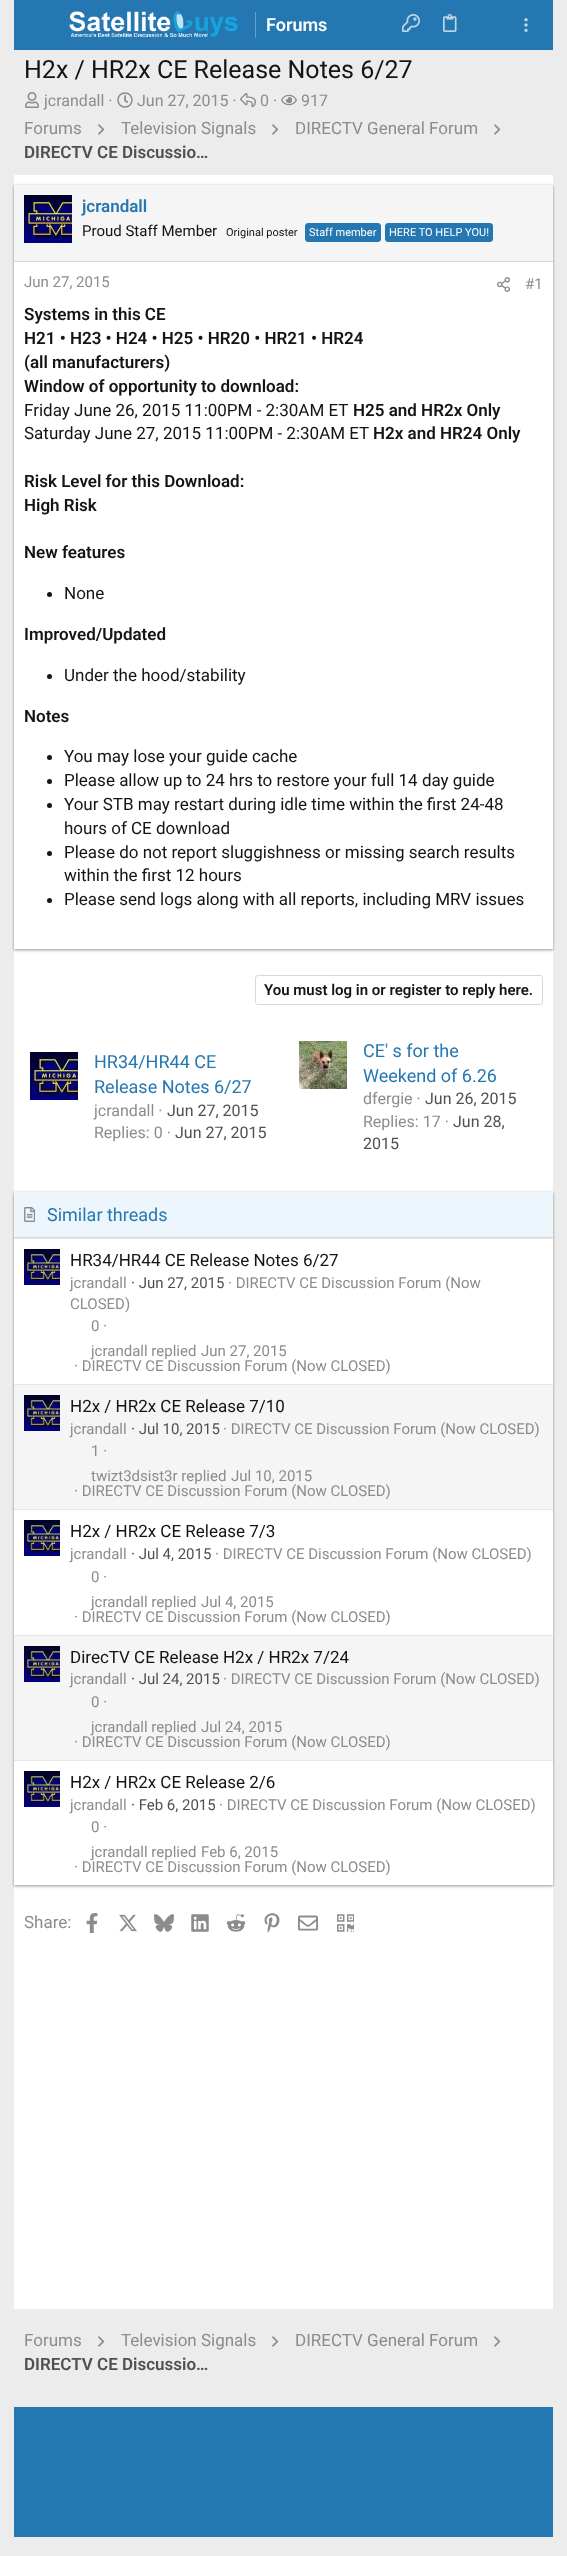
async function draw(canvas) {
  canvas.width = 567;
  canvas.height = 2556;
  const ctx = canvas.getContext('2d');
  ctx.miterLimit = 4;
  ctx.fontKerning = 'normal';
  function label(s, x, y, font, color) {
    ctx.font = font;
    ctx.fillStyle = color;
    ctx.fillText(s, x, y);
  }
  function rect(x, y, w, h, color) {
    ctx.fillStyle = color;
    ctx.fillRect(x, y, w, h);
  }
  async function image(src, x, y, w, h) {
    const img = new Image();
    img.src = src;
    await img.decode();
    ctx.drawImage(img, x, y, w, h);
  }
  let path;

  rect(0, 0, 567, 2556, '#ececec');
  rect(14, 0, 539, 50, '#2577b1');
  await image('assets/img1.png', 69, 11, 169, 26);
  rect(255, 12, 1, 26, '#66a0c8');
  label('Forums', 266, 31, '600 18px Roboto', '#fff');
  await image('assets/img2.png', 402, 14, 18, 18);
  await image('assets/img3.png', 443, 14, 14, 18);
  await image('assets/img4.png', 524, 18, 4, 14);
  label('H2x / HR2x CE Release Notes 6/27', 24, 78, '25px Roboto', '#141414');
  await image('assets/img5.png', 25, 92, 14, 16);
  label('jcrandall ·', 44, 106, '16px Roboto', '#8c8c8c');
  await image('assets/img6.png', 117, 92, 16, 16);
  label('Jun 27, 2015 ·', 137, 106, '16px Roboto', '#8c8c8c');
  await image('assets/img7.png', 240, 93, 16, 14);
  label('0 ·', 260, 106, '16px Roboto', '#8c8c8c');
  await image('assets/img8.png', 281, 94, 16, 12);
  label('917', 301, 106, '16px Roboto', '#8c8c8c');
  label('Forums', 24, 134, '17px Roboto', '#8c8c8c');
  await image('assets/img9.png', 98, 124, 7, 11);
  label('Television Signals', 121, 134, '17px Roboto', '#8c8c8c');
  await image('assets/img9.png', 272, 124, 7, 11);
  label('DIRECTV General Forum', 295, 134, '17px Roboto', '#8c8c8c');
  await image('assets/img9.png', 494, 124, 7, 11);
  label('DIRECTV CE Discussio…', 24, 158, '600 17px Roboto', '#505050');
  rect(14, 175, 539, 2134, '#fff');
  ctx.save();
  path = new Path2D('M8 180H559V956H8ZM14 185H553V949H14Z');
  ctx.clip(path, 'evenodd');
  ctx.fillStyle = '#00000033';
  ctx.filter = 'blur(1.5px)';
  ctx.beginPath();
  ctx.rect(14, 186, 539, 764);
  ctx.fill();
  ctx.filter = 'none';
  ctx.restore();
  ctx.save();
  path = new Path2D('M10 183H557V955H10ZM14 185H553V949H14Z');
  ctx.clip(path, 'evenodd');
  ctx.fillStyle = '#0000001f';
  ctx.filter = 'blur(1px)';
  ctx.beginPath();
  ctx.rect(14, 187, 539, 764);
  ctx.fill();
  ctx.filter = 'none';
  ctx.restore();
  ctx.save();
  path = new Path2D('M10 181H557V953H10ZM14 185H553V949H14Z');
  ctx.clip(path, 'evenodd');
  ctx.fillStyle = '#00000024';
  ctx.filter = 'blur(1px)';
  ctx.beginPath();
  ctx.rect(14, 185, 539, 764);
  ctx.fill();
  ctx.filter = 'none';
  ctx.restore();
  rect(14, 185, 539, 76, '#f5f5f5');
  rect(14, 261, 539, 1, '#d8d8d8');
  await image('assets/img10.png', 24, 195, 48, 48);
  label('jcrandall', 82, 212, '600 17px Roboto', '#2577b1');
  label('Proud Staff Member', 82, 236, '15px Roboto', '#141414');
  label('Original poster', 226, 236, '11px Roboto', '#141414');
  ctx.fillStyle = '#2577b1';
  ctx.beginPath();
  ctx.roundRect(305.5, 223.5, 75, 18, 2.5);
  ctx.fill();
  ctx.strokeStyle = '#2577b1';
  ctx.stroke();
  label('Staff member', 309, 236, '11px Roboto', '#fff');
  ctx.fillStyle = '#2577b1';
  ctx.beginPath();
  ctx.roundRect(385.5, 223.5, 107, 18, 2.5);
  ctx.fill();
  ctx.stroke();
  label('HERE TO HELP YOU!', 389, 236, '11px Roboto', '#fff');
  label('Jun 27, 2015', 24, 287, '15px Roboto', '#8c8c8c');
  await image('assets/img11.png', 497, 277, 13, 15);
  label('#1', 525, 289, '15px Roboto', '#8c8c8c');
  label('Systems in this CE', 24, 320, '600 17px Roboto', '#141414');
  label('H21 • H23 • H24 • H25 • HR20 • HR21 • HR24', 24, 344, '600 17px Roboto', '#141414');
  label('(all manufacturers)', 24, 368, '600 17px Roboto', '#141414');
  label('Window of opportunity to download:', 24, 392, '600 17px Roboto', '#141414');
  label('Friday June 26, 2015 11:00PM - 2:30AM ET', 24, 416, '17px Roboto', '#141414');
  label('H25 and HR2x Only', 353, 416, '600 17px Roboto', '#141414');
  label('Saturday June 27, 2015 11:00PM - 2:30AM ET', 24, 439, '17px Roboto', '#141414');
  label('H2x and HR24 Only', 373, 439, '600 17px Roboto', '#141414');
  label('Risk Level for this Download:', 24, 487, '600 17px Roboto', '#141414');
  label('High Risk', 24, 511, '600 17px Roboto', '#141414');
  label('New features', 24, 558, '600 17px Roboto', '#141414');
  ctx.beginPath();
  ctx.arc(49.5, 594.5, 2.5, 0, 2 * Math.PI);
  ctx.fill();
  label('None', 64, 599, '17px Roboto', '#141414');
  label('Improved/Updated', 24, 640, '600 17px Roboto', '#141414');
  ctx.beginPath();
  ctx.arc(49.5, 676.5, 2.5, 0, 2 * Math.PI);
  ctx.fill();
  label('Under the hood/stability', 64, 681, '17px Roboto', '#141414');
  label('Notes', 24, 722, '600 17px Roboto', '#141414');
  ctx.beginPath();
  ctx.arc(49.5, 757.5, 2.5, 0, 2 * Math.PI);
  ctx.fill();
  label('You may lose your guide cache', 64, 762, '17px Roboto', '#141414');
  ctx.beginPath();
  ctx.arc(49.5, 781.5, 2.5, 0, 2 * Math.PI);
  ctx.fill();
  label('Please allow up to 24 hrs to restore your full 14 day guide', 64, 786, '17px Roboto', '#141414');
  ctx.beginPath();
  ctx.arc(49.5, 805.5, 2.5, 0, 2 * Math.PI);
  ctx.fill();
  label('Your STB may restart during idle time within the first 24-48', 64, 810, '17px Roboto', '#141414');
  label('hours of CE download', 64, 834, '17px Roboto', '#141414');
  ctx.beginPath();
  ctx.arc(49.5, 853.5, 2.5, 0, 2 * Math.PI);
  ctx.fill();
  label('Please do not report sluggishness or missing search results', 64, 858, '17px Roboto', '#141414');
  label('within the first 12 hours', 64, 881, '17px Roboto', '#141414');
  ctx.beginPath();
  ctx.arc(49.5, 900.5, 2.5, 0, 2 * Math.PI);
  ctx.fill();
  label('Please send logs along with all reports, including MRV issues', 64, 905, '17px Roboto', '#141414');
  ctx.beginPath();
  ctx.roundRect(255.5, 975.5, 287, 29, 2.5);
  ctx.strokeStyle = '#d8d8d8';
  ctx.stroke();
  label('You must log in or register to reply here.', 264, 995, '600 15px Roboto', '#141414');
  await image('assets/img12.png', 30, 1052, 48, 48);
  label('HR34/HR44 CE', 94, 1068, '18px Roboto', '#2577b1');
  label('Release Notes 6/27', 94, 1093, '18px Roboto', '#2577b1');
  label('jcrandall ·', 94, 1116, '16px Roboto', '#8c8c8c');
  label('Jun 27, 2015', 167, 1116, '16px Roboto', '#505050');
  label('Replies: 0 ·', 94, 1138, '16px Roboto', '#8c8c8c');
  label('Jun 27, 2015', 175, 1138, '16px Roboto', '#505050');
  await image('assets/img13.png', 299, 1041, 48, 48);
  label('CE\' s for the', 363, 1057, '18px Roboto', '#2577b1');
  label('Weekend of 6.26', 363, 1082, '18px Roboto', '#2577b1');
  label('dfergie ·', 363, 1104, '16px Roboto', '#8c8c8c');
  label('Jun 26, 2015', 425, 1104, '16px Roboto', '#505050');
  label('Replies: 17 ·', 363, 1127, '16px Roboto', '#8c8c8c');
  label('Jun 28,', 453, 1127, '16px Roboto', '#505050');
  label('2015', 363, 1149, '16px Roboto', '#505050');
  ctx.save();
  path = new Path2D('M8 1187H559V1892H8ZM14 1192H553V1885H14Z');
  ctx.clip(path, 'evenodd');
  ctx.fillStyle = '#00000033';
  ctx.filter = 'blur(1.5px)';
  ctx.beginPath();
  ctx.rect(14, 1193, 539, 693);
  ctx.fill();
  ctx.filter = 'none';
  ctx.restore();
  ctx.save();
  path = new Path2D('M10 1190H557V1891H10ZM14 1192H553V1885H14Z');
  ctx.clip(path, 'evenodd');
  ctx.fillStyle = '#0000001f';
  ctx.filter = 'blur(1px)';
  ctx.beginPath();
  ctx.rect(14, 1194, 539, 693);
  ctx.fill();
  ctx.filter = 'none';
  ctx.restore();
  ctx.save();
  path = new Path2D('M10 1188H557V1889H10ZM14 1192H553V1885H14Z');
  ctx.clip(path, 'evenodd');
  ctx.fillStyle = '#00000024';
  ctx.filter = 'blur(1px)';
  ctx.beginPath();
  ctx.rect(14, 1192, 539, 693);
  ctx.fill();
  ctx.filter = 'none';
  ctx.restore();
  rect(14, 1192, 539, 45, '#edf6fd');
  rect(14, 1237, 539, 1, '#d8d8d8');
  await image('assets/img14.png', 24, 1207, 11, 15);
  label('Similar threads', 47, 1221, '18px Roboto', '#2577b1');
  rect(14, 1238, 539, 1, '#e7e7e7');
  await image('assets/img15.png', 24, 1249, 36, 36);
  label('HR34/HR44 CE Release Notes 6/27', 70, 1266, '17px Roboto', '#141414');
  label('jcrandall', 70, 1288, '15px Roboto', '#8c8c8c');
  label('· Jun 27, 2015', 131, 1288, '15px Roboto', '#505050');
  label('· DIRECTV CE Discussion Forum (Now', 228, 1288, '15px Roboto', '#8c8c8c');
  label('CLOSED)', 70, 1309, '15px Roboto', '#8c8c8c');
  label('0 ·', 91, 1331, '15px Roboto', '#8c8c8c');
  label('jcrandall replied', 91, 1356, '15px Roboto', '#8c8c8c');
  label('Jun 27, 2015', 201, 1356, '15px Roboto', '#8c8c8c');
  label('· DIRECTV CE Discussion Forum (Now CLOSED)', 74, 1371, '15px Roboto', '#8c8c8c');
  rect(14, 1385, 539, 124, '#f5f5f5');
  rect(14, 1384, 539, 1, '#e7e7e7');
  await image('assets/img15.png', 24, 1395, 36, 36);
  label('H2x / HR2x CE Release 7/10', 70, 1412, '17px Roboto', '#141414');
  label('jcrandall', 70, 1434, '15px Roboto', '#8c8c8c');
  label('· Jul 10, 2015', 131, 1434, '15px Roboto', '#505050');
  label('· DIRECTV CE Discussion Forum (Now CLOSED)', 223, 1434, '15px Roboto', '#8c8c8c');
  label('1 ·', 91, 1456, '15px Roboto', '#8c8c8c');
  label('twizt3dsist3r replied', 91, 1481, '15px Roboto', '#8c8c8c');
  label('Jul 10, 2015', 231, 1481, '15px Roboto', '#8c8c8c');
  label('· DIRECTV CE Discussion Forum (Now CLOSED)', 74, 1496, '15px Roboto', '#8c8c8c');
  rect(14, 1509, 539, 1, '#e7e7e7');
  await image('assets/img15.png', 24, 1520, 36, 36);
  label('H2x / HR2x CE Release 7/3', 70, 1537, '17px Roboto', '#141414');
  label('jcrandall', 70, 1559, '15px Roboto', '#8c8c8c');
  label('· Jul 4, 2015', 131, 1559, '15px Roboto', '#505050');
  label('· DIRECTV CE Discussion Forum (Now CLOSED)', 215, 1559, '15px Roboto', '#8c8c8c');
  label('0 ·', 91, 1582, '15px Roboto', '#8c8c8c');
  label('jcrandall replied', 91, 1607, '15px Roboto', '#8c8c8c');
  label('Jul 4, 2015', 201, 1607, '15px Roboto', '#8c8c8c');
  label('· DIRECTV CE Discussion Forum (Now CLOSED)', 74, 1622, '15px Roboto', '#8c8c8c');
  rect(14, 1636, 539, 124, '#f5f5f5');
  rect(14, 1635, 539, 1, '#e7e7e7');
  await image('assets/img15.png', 24, 1646, 36, 36);
  label('DirecTV CE Release H2x / HR2x 7/24', 70, 1663, '17px Roboto', '#141414');
  label('jcrandall', 70, 1684, '15px Roboto', '#8c8c8c');
  label('· Jul 24, 2015', 131, 1684, '15px Roboto', '#505050');
  label('· DIRECTV CE Discussion Forum (Now CLOSED)', 223, 1684, '15px Roboto', '#8c8c8c');
  label('0 ·', 91, 1707, '15px Roboto', '#8c8c8c');
  label('jcrandall replied', 91, 1732, '15px Roboto', '#8c8c8c');
  label('Jul 24, 2015', 201, 1732, '15px Roboto', '#8c8c8c');
  label('· DIRECTV CE Discussion Forum (Now CLOSED)', 74, 1747, '15px Roboto', '#8c8c8c');
  rect(14, 1760, 539, 1, '#e7e7e7');
  await image('assets/img15.png', 24, 1771, 36, 36);
  label('H2x / HR2x CE Release 2/6', 70, 1788, '17px Roboto', '#141414');
  label('jcrandall', 70, 1810, '15px Roboto', '#8c8c8c');
  label('· Feb 6, 2015', 131, 1810, '15px Roboto', '#505050');
  label('· DIRECTV CE Discussion Forum (Now CLOSED)', 219, 1810, '15px Roboto', '#8c8c8c');
  label('0 ·', 91, 1832, '15px Roboto', '#8c8c8c');
  label('jcrandall replied', 91, 1857, '15px Roboto', '#8c8c8c');
  label('Feb 6, 2015', 201, 1857, '15px Roboto', '#8c8c8c');
  label('· DIRECTV CE Discussion Forum (Now CLOSED)', 74, 1872, '15px Roboto', '#8c8c8c');
  label('Share:', 24, 1928, '17px Roboto', '#8c8c8c');
  await image('assets/img16.png', 86, 1913, 12, 20);
  await image('assets/img17.png', 119, 1914, 18, 18);
  await image('assets/img18.png', 154, 1914, 20, 18);
  await image('assets/img19.png', 191, 1914, 18, 18);
  await image('assets/img20.png', 226, 1914, 20, 18);
  await image('assets/img21.png', 264, 1913, 16, 20);
  await image('assets/img22.png', 298, 1915, 20, 16);
  await image('assets/img23.png', 337, 1914, 17, 18);
  label('Forums', 24, 2346, '17px Roboto', '#8c8c8c');
  await image('assets/img9.png', 98, 2336, 7, 11);
  label('Television Signals', 121, 2346, '17px Roboto', '#8c8c8c');
  await image('assets/img9.png', 272, 2336, 7, 11);
  label('DIRECTV General Forum', 295, 2346, '17px Roboto', '#8c8c8c');
  await image('assets/img9.png', 494, 2336, 7, 11);
  label('DIRECTV CE Discussio…', 24, 2370, '600 17px Roboto', '#505050');
  rect(14, 2407, 539, 130, '#2577b1');
}

draw(document.querySelector('canvas'));
